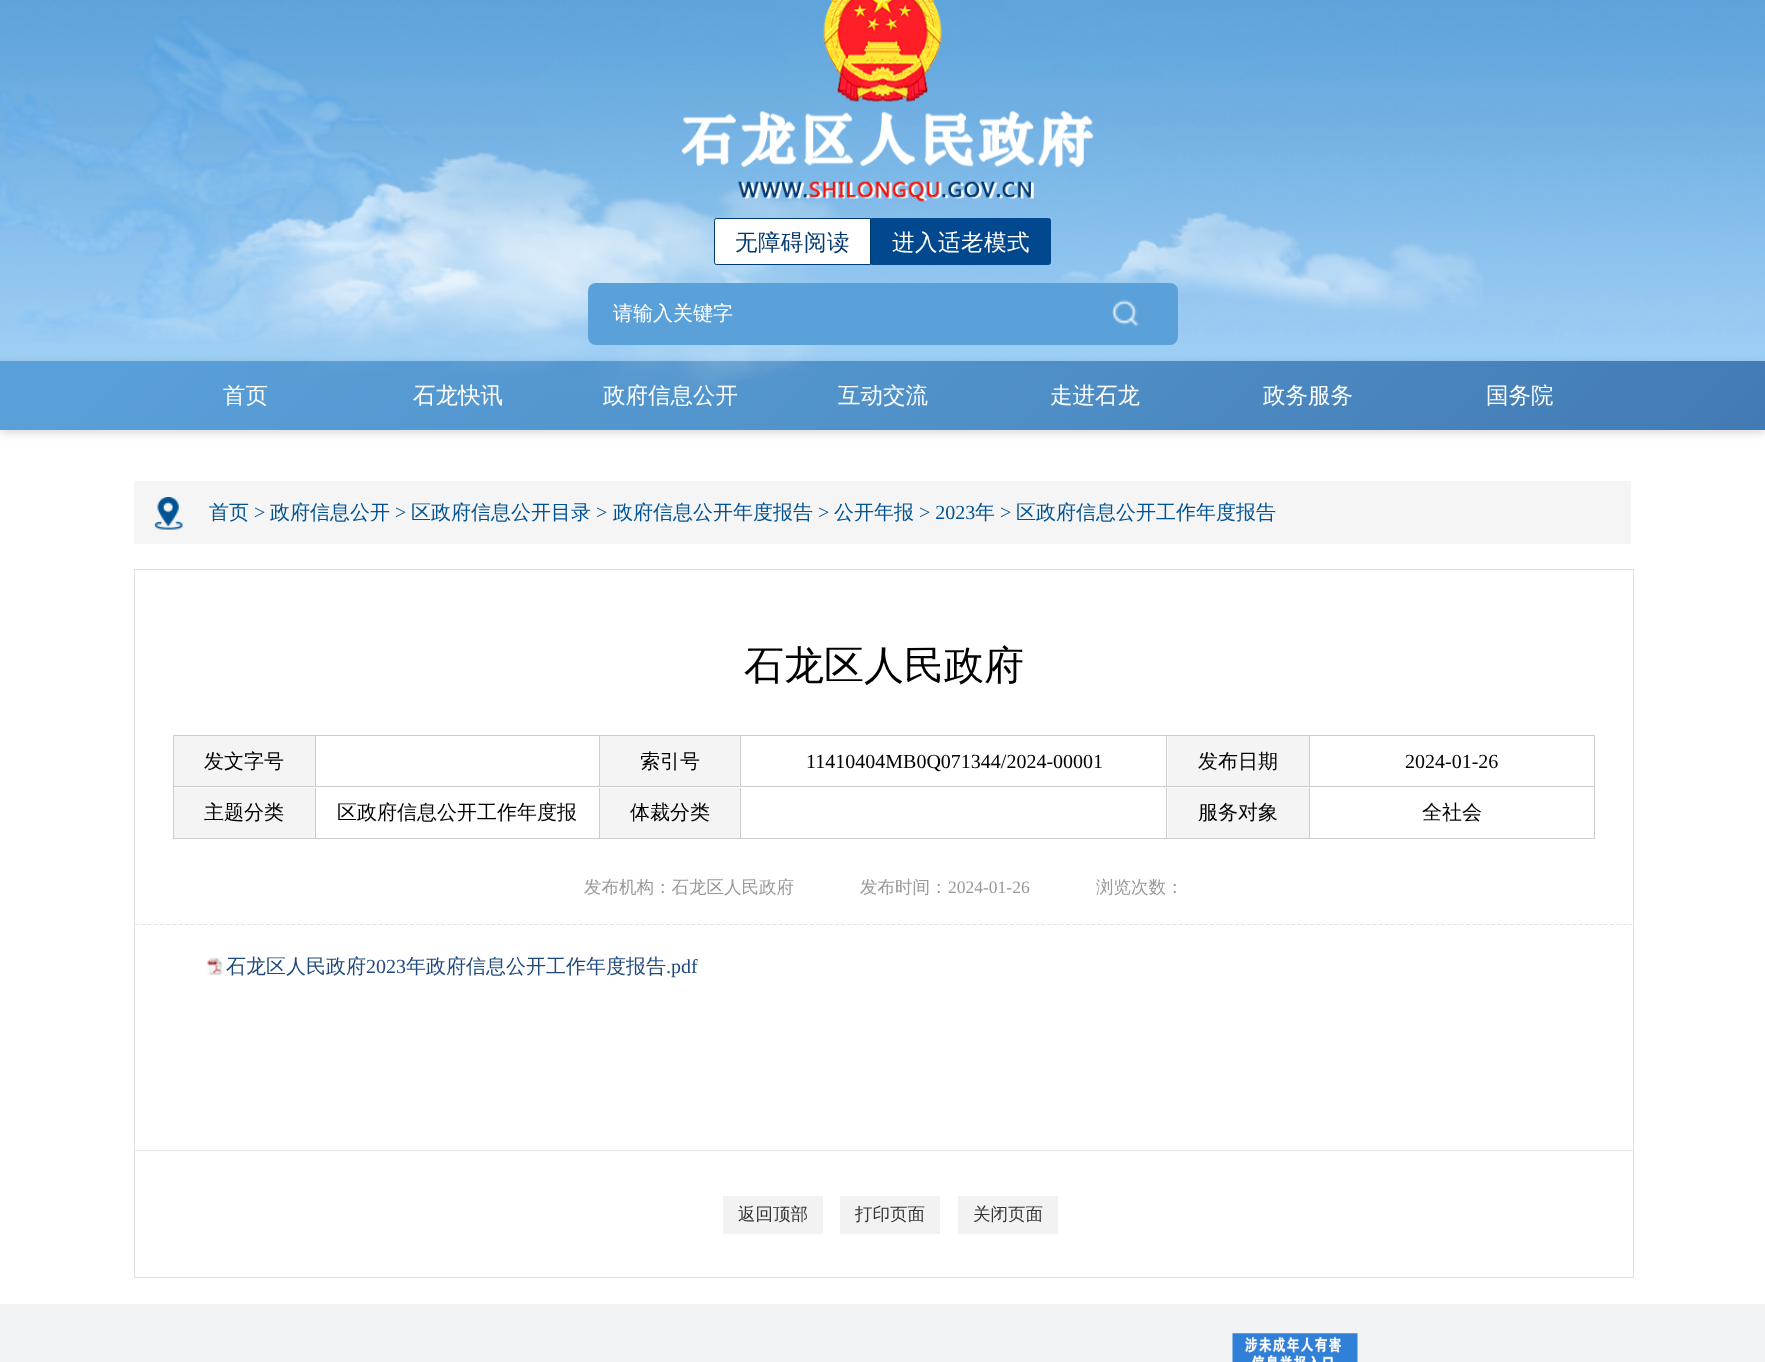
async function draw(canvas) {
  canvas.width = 1765;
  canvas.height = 1362;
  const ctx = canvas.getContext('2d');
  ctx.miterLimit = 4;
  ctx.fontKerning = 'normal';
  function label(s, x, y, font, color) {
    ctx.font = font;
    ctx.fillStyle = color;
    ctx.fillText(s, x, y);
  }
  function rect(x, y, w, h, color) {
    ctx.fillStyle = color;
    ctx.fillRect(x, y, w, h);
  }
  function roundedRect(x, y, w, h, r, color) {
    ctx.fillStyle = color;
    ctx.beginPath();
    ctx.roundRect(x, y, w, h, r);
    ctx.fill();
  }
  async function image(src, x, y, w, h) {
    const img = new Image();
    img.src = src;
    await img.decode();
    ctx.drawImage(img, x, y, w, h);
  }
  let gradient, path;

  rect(0, 0, 1765, 1362, '#fff');
  await image('assets/img1.png', 0, 0, 1765, 361);
  ctx.fillStyle = '#00000026';
  ctx.filter = 'blur(5px)';
  ctx.beginPath();
  ctx.rect(0, 364, 1765, 69);
  ctx.fill();
  ctx.filter = 'none';
  gradient = ctx.createLinearGradient(424, -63, 1341, 854);
  gradient.addColorStop(0, '#5aa1da');
  gradient.addColorStop(0.5, '#5192ca');
  gradient.addColorStop(1, '#437ab3');
  ctx.fillStyle = gradient;
  ctx.fillRect(0, 361, 1765, 69);
  await image('assets/img4.png', 194, 152, 647, 240);
  await image('assets/img2.png', 0, 16, 427, 326);
  await image('assets/img3.png', 681, 0, 413, 202);
  await image('assets/img5.png', 1057, 212, 426, 103);
  ctx.fillStyle = '#fff';
  ctx.beginPath();
  ctx.roundRect(714.5, 218.5, 156, 46, [2, 0, 0, 2]);
  ctx.fill();
  ctx.strokeStyle = '#003870';
  ctx.stroke();
  ctx.letterSpacing = '0.5px';
  label('无障碍阅读', 735, 250, '500 22.5px WenQuanYi Zen Hei', '#003870');
  ctx.fillStyle = '#02488e';
  ctx.beginPath();
  ctx.roundRect(871.5, 218.5, 179, 46, [0, 2, 2, 0]);
  ctx.fill();
  ctx.strokeStyle = '#02488e';
  ctx.stroke();
  label('进入适老模式', 892, 250, '500 22.5px WenQuanYi Zen Hei', '#fff');
  roundedRect(588, 283, 590, 62, 8, '#5aa1da');
  ctx.letterSpacing = '0px';
  label('请输入关键字', 613, 320, '500 20px WenQuanYi Zen Hei', '#fff');
  await image('assets/img6.png', 1111, 299, 28, 28);
  label('首页', 223, 403, '500 22.5px WenQuanYi Zen Hei', '#fff');
  label('石龙快讯', 413, 403, '500 22.5px WenQuanYi Zen Hei', '#fff');
  label('政府信息公开', 603, 403, '500 22.5px WenQuanYi Zen Hei', '#fff');
  label('互动交流', 838, 403, '500 22.5px WenQuanYi Zen Hei', '#fff');
  label('走进石龙', 1050, 403, '500 22.5px WenQuanYi Zen Hei', '#fff');
  label('政务服务', 1263, 403, '500 22.5px WenQuanYi Zen Hei', '#fff');
  label('国务院', 1486, 403, '500 22.5px WenQuanYi Zen Hei', '#fff');
  rect(134, 481, 1497, 63, '#f5f5f5');
  await image('assets/img7.png', 154, 497, 29, 33);
  label('首页', 209, 519, '500 20px WenQuanYi Zen Hei', '#015293');
  label('>', 254, 519, '20px Liberation Serif', '#015293');
  label('政府信息公开', 270, 519, '500 20px WenQuanYi Zen Hei', '#015293');
  label('>', 395, 519, '20px Liberation Serif', '#015293');
  label('区政府信息公开目录', 411, 519, '500 20px WenQuanYi Zen Hei', '#015293');
  label('>', 596, 519, '20px Liberation Serif', '#015293');
  label('政府信息公开年度报告', 613, 519, '500 20px WenQuanYi Zen Hei', '#015293');
  label('>', 818, 519, '20px Liberation Serif', '#015293');
  label('公开年报', 834, 519, '500 20px WenQuanYi Zen Hei', '#015293');
  label('> 2023', 919, 519, '20px Liberation Serif', '#015293');
  label('年', 975, 519, '500 20px WenQuanYi Zen Hei', '#015293');
  label('>', 1000, 519, '20px Liberation Serif', '#015293');
  label('区政府信息公开工作年度报告', 1016, 519, '500 20px WenQuanYi Zen Hei', '#015293');
  ctx.strokeStyle = '#e0e0e0';
  ctx.strokeRect(134.5, 569.5, 1499, 708);
  path = new Path2D('M135 924.5H1632.5');
  ctx.strokeStyle = '#e3e3e3';
  ctx.lineWidth = 1.2;
  ctx.setLineDash([3.75, 2.5]);
  ctx.stroke(path);
  label('石龙区人民政府', 744, 679, '500 40px WenQuanYi Zen Hei', '#000');
  rect(173, 735, 1422, 1, '#ccc');
  rect(1594, 735, 1, 51, '#ccc');
  rect(173, 735, 1, 51, '#ccc');
  rect(174, 736, 141, 50, '#f4f4f4');
  rect(315, 736, 1, 50, '#ccc');
  label('发文字号', 204, 768, '500 20px WenQuanYi Zen Hei', '#000');
  rect(599, 736, 1, 50, '#ccc');
  rect(600, 736, 140, 50, '#f4f4f4');
  rect(740, 736, 1, 50, '#ccc');
  label('索引号', 640, 768, '500 20px WenQuanYi Zen Hei', '#000');
  rect(1166, 736, 1, 50, '#ccc');
  label('11410404MB0Q071344/2024-00001', 806, 768, '20px Liberation Serif', '#000');
  rect(1168, 736, 141, 50, '#f4f4f4');
  rect(1309, 736, 1, 50, '#ccc');
  label('发布日期', 1198, 768, '500 20px WenQuanYi Zen Hei', '#000');
  label('2024-01-26', 1405, 768, '20px Liberation Serif', '#000');
  ctx.strokeStyle = '#ccc';
  ctx.lineWidth = 1;
  ctx.setLineDash([]);
  ctx.strokeRect(173.5, 786.5, 1421, 52);
  rect(174, 788, 141, 50, '#f4f4f4');
  rect(315, 788, 1, 50, '#ccc');
  label('主题分类', 204, 819, '500 20px WenQuanYi Zen Hei', '#000');
  rect(599, 788, 1, 50, '#ccc');
  label('区政府信息公开工作年度报', 337, 819, '500 20px WenQuanYi Zen Hei', '#000');
  rect(600, 788, 140, 50, '#f4f4f4');
  rect(740, 788, 1, 50, '#ccc');
  label('体裁分类', 630, 819, '500 20px WenQuanYi Zen Hei', '#000');
  rect(1166, 788, 1, 50, '#ccc');
  rect(1168, 788, 141, 50, '#f4f4f4');
  rect(1309, 788, 1, 50, '#ccc');
  label('服务对象', 1198, 819, '500 20px WenQuanYi Zen Hei', '#000');
  label('全社会', 1422, 819, '500 20px WenQuanYi Zen Hei', '#000');
  label('发布机构：石龙区人民政府', 584, 893, '500 17.5px WenQuanYi Zen Hei', '#999');
  label('发布时间：', 860, 893, '500 17.5px WenQuanYi Zen Hei', '#999');
  label('2024-01-26', 948, 893, '17.5px Liberation Serif', '#999');
  label('浏览次数：', 1096, 893, '500 17.5px WenQuanYi Zen Hei', '#999');
  rect(135, 1150, 1498, 1, '#e3e3e3');
  await image('assets/img8.png', 207, 957, 16, 19);
  label('石龙区人民政府', 226, 973, '500 20px WenQuanYi Zen Hei', '#1f497d');
  label('2023', 366, 973, '20px Liberation Serif', '#1f497d');
  label('年政府信息公开工作年度报告', 406, 973, '500 20px WenQuanYi Zen Hei', '#1f497d');
  label('.pdf', 666, 973, '20px Liberation Serif', '#1f497d');
  rect(723, 1196, 100, 38, '#f2f2f2');
  label('返回顶部', 738, 1220, '500 17.5px WenQuanYi Zen Hei', '#333');
  rect(840, 1196, 100, 38, '#f2f2f2');
  label('打印页面', 855, 1220, '500 17.5px WenQuanYi Zen Hei', '#333');
  rect(958, 1196, 100, 38, '#f2f2f2');
  label('关闭页面', 973, 1220, '500 17.5px WenQuanYi Zen Hei', '#333');
  rect(0, 1304, 1765, 58, '#f2f3f5');
  await image('assets/img9.png', 1232, 1333, 126, 29);
}

draw(document.querySelector('canvas'));
